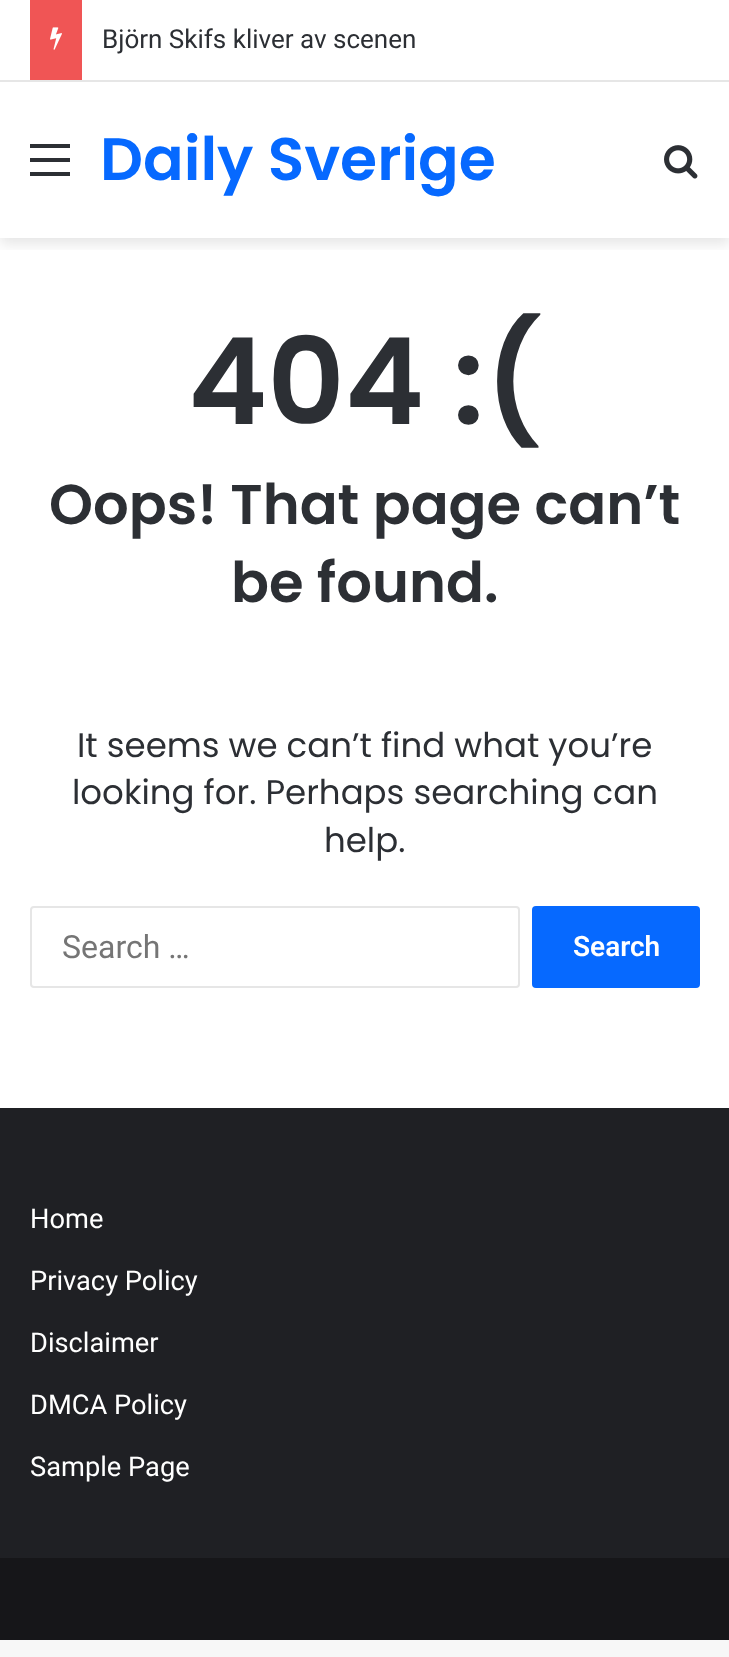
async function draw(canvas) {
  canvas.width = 729;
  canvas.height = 1657;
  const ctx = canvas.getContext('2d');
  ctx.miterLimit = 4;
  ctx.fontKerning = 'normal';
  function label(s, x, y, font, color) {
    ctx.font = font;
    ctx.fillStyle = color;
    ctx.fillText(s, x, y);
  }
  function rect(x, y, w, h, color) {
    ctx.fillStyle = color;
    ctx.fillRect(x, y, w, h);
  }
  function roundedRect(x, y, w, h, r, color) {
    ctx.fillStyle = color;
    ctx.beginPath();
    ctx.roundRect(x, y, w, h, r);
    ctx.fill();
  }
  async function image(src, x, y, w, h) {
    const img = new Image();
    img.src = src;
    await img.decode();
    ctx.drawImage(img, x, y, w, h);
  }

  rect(0, 0, 729, 1657, '#f7f7f7');
  rect(0, 82, 729, 1026, '#fff');
  ctx.save();
  ctx.beginPath();
  ctx.rect(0, 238, 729, 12);
  ctx.clip();
  ctx.fillStyle = '#0000001a';
  ctx.filter = 'blur(7px)';
  ctx.beginPath();
  ctx.rect(0, 88, 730, 156);
  ctx.fill();
  ctx.filter = 'none';
  ctx.restore();
  rect(0, 0, 729, 80, '#fff');
  rect(0, 80, 729, 2, '#e6e6e6');
  rect(30, 0, 52, 80, '#f05555');
  await image('assets/img1.png', 50, 27, 12, 23);
  label('Björn Skifs kliver av scenen', 102, 48, '26px Roboto', '#2c2f34');
  rect(30, 158, 40, 4, '#2c2f34');
  rect(30, 144, 40, 4, '#2c2f34');
  rect(30, 172, 40, 4, '#2c2f34');
  label('Daily Sverige', 100, 180, '600 60px Poppins', '#0669ff');
  await image('assets/img2.png', 664, 145, 34, 34);
  label('404 :(', 188, 424, '600 120px Poppins', '#2c2f34');
  label('Oops! That page can’t', 49, 524, '600 56px Poppins', '#2c2f34');
  label('be found.', 231, 602, '600 56px Poppins', '#2c2f34');
  label('It seems we can’t find what you’re', 77, 757, '34px Poppins', '#2c2f34');
  label('looking for. Perhaps searching can', 72, 804, '34px Poppins', '#2c2f34');
  label('help.', 324, 852, '34px Poppins', '#2c2f34');
  ctx.beginPath();
  ctx.roundRect(31, 907, 488, 80, 3);
  ctx.strokeStyle = '#e6e6e6';
  ctx.lineWidth = 2;
  ctx.stroke();
  label('Search …', 62, 958, '32px Roboto', '#757575');
  roundedRect(532, 906, 168, 82, 4, '#0669ff');
  label('Search', 573, 956, '600 28px Roboto', '#fff');
  rect(0, 1108, 729, 450, '#1f2024');
  label('Home', 30, 1228, '27.25px Roboto', '#fff');
  label('Privacy Policy', 30, 1290, '27.25px Roboto', '#fff');
  label('Disclaimer', 30, 1352, '27.25px Roboto', '#fff');
  label('DMCA Policy', 30, 1414, '27.25px Roboto', '#fff');
  label('Sample Page', 30, 1476, '27.25px Roboto', '#fff');
  rect(0, 1558, 729, 82, '#161619');
}

draw(document.querySelector('canvas'));
